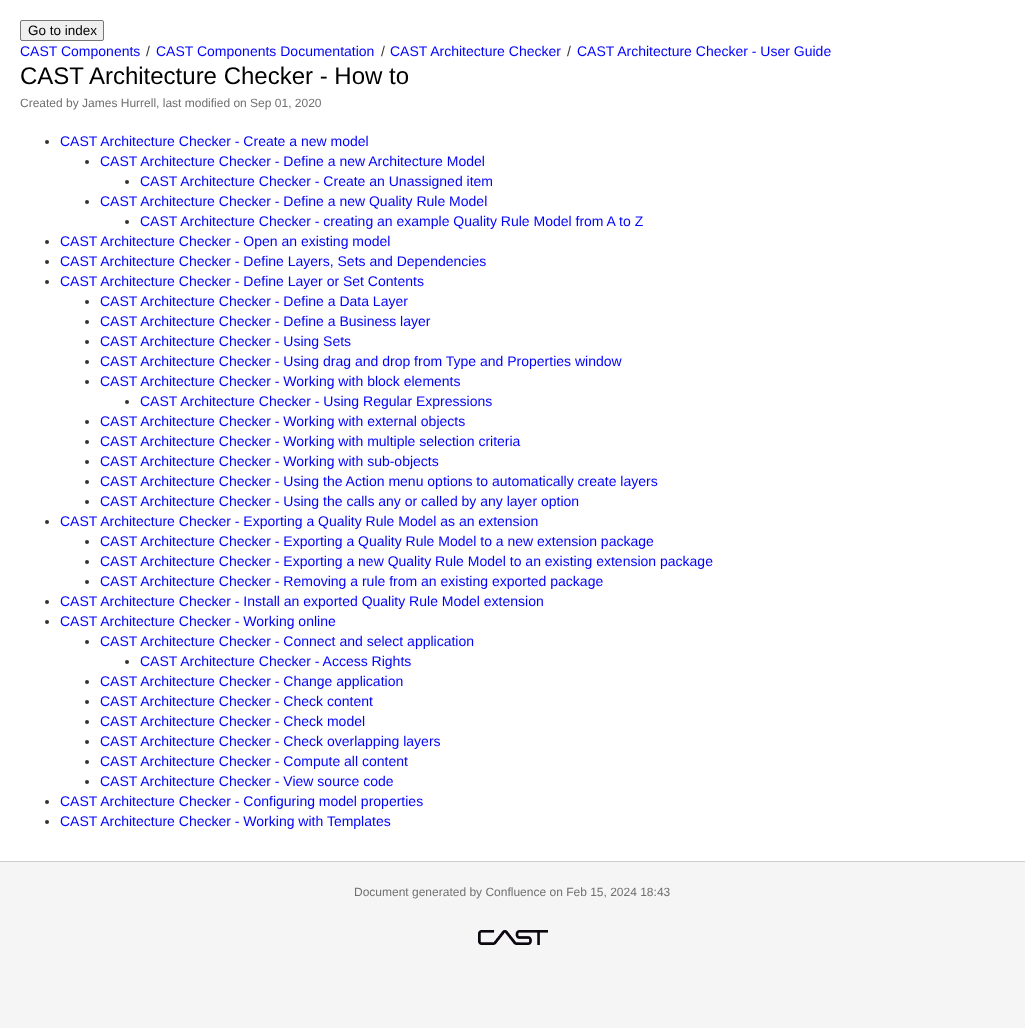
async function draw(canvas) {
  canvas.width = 1025;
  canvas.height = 1028;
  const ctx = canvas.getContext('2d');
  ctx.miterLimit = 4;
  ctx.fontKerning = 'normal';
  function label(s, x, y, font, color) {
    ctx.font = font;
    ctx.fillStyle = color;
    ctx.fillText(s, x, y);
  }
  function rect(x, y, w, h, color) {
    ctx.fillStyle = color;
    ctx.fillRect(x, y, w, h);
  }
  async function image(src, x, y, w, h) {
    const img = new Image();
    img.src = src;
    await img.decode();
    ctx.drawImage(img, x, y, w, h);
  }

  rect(0, 0, 1025, 1028, '#f5f5f5');
  rect(0, 0, 1025, 861, '#fff');
  rect(0, 861, 1025, 1, '#ccc');
  ctx.fillStyle = '#efefef';
  ctx.beginPath();
  ctx.roundRect(20.5, 20.5, 83, 20, 1.5);
  ctx.fill();
  ctx.strokeStyle = '#767676';
  ctx.stroke();
  label('Go to index', 28, 35, '13.5px Liberation Sans', '#000');
  label('CAST Components', 20, 56, '14px Liberation Sans', '#00f');
  label('/', 146, 56, '14px Liberation Sans', '#333');
  label('CAST Components Documentation', 156, 56, '14px Liberation Sans', '#00f');
  label('/', 381, 56, '14px Liberation Sans', '#333');
  label('CAST Architecture Checker', 390, 56, '14px Liberation Sans', '#00f');
  label('/', 567, 56, '14px Liberation Sans', '#333');
  label('CAST Architecture Checker - User Guide', 577, 56, '14px Liberation Sans', '#00f');
  label('CAST Architecture Checker - How to', 20, 84, '24px Liberation Sans', '#000');
  label('Created by James Hurrell, last modified on Sep 01, 2020', 20, 107, '12px Liberation Sans', '#707070');
  ctx.fillStyle = '#333';
  ctx.beginPath();
  ctx.arc(47, 142, 2, 0, 2 * Math.PI);
  ctx.fill();
  label('CAST Architecture Checker - Create a new model', 60, 146, '14px Liberation Sans', '#00f');
  ctx.fillStyle = '#333';
  ctx.beginPath();
  ctx.arc(87, 162, 2, 0, 2 * Math.PI);
  ctx.fill();
  label('CAST Architecture Checker - Define a new Architecture Model', 100, 166, '14px Liberation Sans', '#00f');
  ctx.fillStyle = '#333';
  ctx.beginPath();
  ctx.arc(127, 182, 2, 0, 2 * Math.PI);
  ctx.fill();
  label('CAST Architecture Checker - Create an Unassigned item', 140, 186, '14px Liberation Sans', '#00f');
  ctx.fillStyle = '#333';
  ctx.beginPath();
  ctx.arc(87, 202, 2, 0, 2 * Math.PI);
  ctx.fill();
  label('CAST Architecture Checker - Define a new Quality Rule Model', 100, 206, '14px Liberation Sans', '#00f');
  ctx.fillStyle = '#333';
  ctx.beginPath();
  ctx.arc(127, 222, 2, 0, 2 * Math.PI);
  ctx.fill();
  label('CAST Architecture Checker - creating an example Quality Rule Model from A to Z', 140, 226, '14px Liberation Sans', '#00f');
  ctx.fillStyle = '#333';
  ctx.beginPath();
  ctx.arc(47, 242, 2, 0, 2 * Math.PI);
  ctx.fill();
  label('CAST Architecture Checker - Open an existing model', 60, 246, '14px Liberation Sans', '#00f');
  ctx.fillStyle = '#333';
  ctx.beginPath();
  ctx.arc(47, 262, 2, 0, 2 * Math.PI);
  ctx.fill();
  label('CAST Architecture Checker - Define Layers, Sets and Dependencies', 60, 266, '14px Liberation Sans', '#00f');
  ctx.fillStyle = '#333';
  ctx.beginPath();
  ctx.arc(47, 282, 2, 0, 2 * Math.PI);
  ctx.fill();
  label('CAST Architecture Checker - Define Layer or Set Contents', 60, 286, '14px Liberation Sans', '#00f');
  ctx.fillStyle = '#333';
  ctx.beginPath();
  ctx.arc(87, 302, 2, 0, 2 * Math.PI);
  ctx.fill();
  label('CAST Architecture Checker - Define a Data Layer', 100, 306, '14px Liberation Sans', '#00f');
  ctx.fillStyle = '#333';
  ctx.beginPath();
  ctx.arc(87, 322, 2, 0, 2 * Math.PI);
  ctx.fill();
  label('CAST Architecture Checker - Define a Business layer', 100, 326, '14px Liberation Sans', '#00f');
  ctx.fillStyle = '#333';
  ctx.beginPath();
  ctx.arc(87, 342, 2, 0, 2 * Math.PI);
  ctx.fill();
  label('CAST Architecture Checker - Using Sets', 100, 346, '14px Liberation Sans', '#00f');
  ctx.fillStyle = '#333';
  ctx.beginPath();
  ctx.arc(87, 362, 2, 0, 2 * Math.PI);
  ctx.fill();
  label('CAST Architecture Checker - Using drag and drop from Type and Properties window', 100, 366, '14px Liberation Sans', '#00f');
  ctx.fillStyle = '#333';
  ctx.beginPath();
  ctx.arc(87, 382, 2, 0, 2 * Math.PI);
  ctx.fill();
  label('CAST Architecture Checker - Working with block elements', 100, 386, '14px Liberation Sans', '#00f');
  ctx.fillStyle = '#333';
  ctx.beginPath();
  ctx.arc(127, 402, 2, 0, 2 * Math.PI);
  ctx.fill();
  label('CAST Architecture Checker - Using Regular Expressions', 140, 406, '14px Liberation Sans', '#00f');
  ctx.fillStyle = '#333';
  ctx.beginPath();
  ctx.arc(87, 422, 2, 0, 2 * Math.PI);
  ctx.fill();
  label('CAST Architecture Checker - Working with external objects', 100, 426, '14px Liberation Sans', '#00f');
  ctx.fillStyle = '#333';
  ctx.beginPath();
  ctx.arc(87, 442, 2, 0, 2 * Math.PI);
  ctx.fill();
  label('CAST Architecture Checker - Working with multiple selection criteria', 100, 446, '14px Liberation Sans', '#00f');
  ctx.fillStyle = '#333';
  ctx.beginPath();
  ctx.arc(87, 462, 2, 0, 2 * Math.PI);
  ctx.fill();
  label('CAST Architecture Checker - Working with sub-objects', 100, 466, '14px Liberation Sans', '#00f');
  ctx.fillStyle = '#333';
  ctx.beginPath();
  ctx.arc(87, 482, 2, 0, 2 * Math.PI);
  ctx.fill();
  label('CAST Architecture Checker - Using the Action menu options to automatically create layers', 100, 486, '14px Liberation Sans', '#00f');
  ctx.fillStyle = '#333';
  ctx.beginPath();
  ctx.arc(87, 502, 2, 0, 2 * Math.PI);
  ctx.fill();
  label('CAST Architecture Checker - Using the calls any or called by any layer option', 100, 506, '14px Liberation Sans', '#00f');
  ctx.fillStyle = '#333';
  ctx.beginPath();
  ctx.arc(47, 522, 2, 0, 2 * Math.PI);
  ctx.fill();
  label('CAST Architecture Checker - Exporting a Quality Rule Model as an extension', 60, 526, '14px Liberation Sans', '#00f');
  ctx.fillStyle = '#333';
  ctx.beginPath();
  ctx.arc(87, 542, 2, 0, 2 * Math.PI);
  ctx.fill();
  label('CAST Architecture Checker - Exporting a Quality Rule Model to a new extension package', 100, 546, '14px Liberation Sans', '#00f');
  ctx.fillStyle = '#333';
  ctx.beginPath();
  ctx.arc(87, 562, 2, 0, 2 * Math.PI);
  ctx.fill();
  label('CAST Architecture Checker - Exporting a new Quality Rule Model to an existing extension package', 100, 566, '14px Liberation Sans', '#00f');
  ctx.fillStyle = '#333';
  ctx.beginPath();
  ctx.arc(87, 582, 2, 0, 2 * Math.PI);
  ctx.fill();
  label('CAST Architecture Checker - Removing a rule from an existing exported package', 100, 586, '14px Liberation Sans', '#00f');
  ctx.fillStyle = '#333';
  ctx.beginPath();
  ctx.arc(47, 602, 2, 0, 2 * Math.PI);
  ctx.fill();
  label('CAST Architecture Checker - Install an exported Quality Rule Model extension', 60, 606, '14px Liberation Sans', '#00f');
  ctx.fillStyle = '#333';
  ctx.beginPath();
  ctx.arc(47, 622, 2, 0, 2 * Math.PI);
  ctx.fill();
  label('CAST Architecture Checker - Working online', 60, 626, '14px Liberation Sans', '#00f');
  ctx.fillStyle = '#333';
  ctx.beginPath();
  ctx.arc(87, 642, 2, 0, 2 * Math.PI);
  ctx.fill();
  label('CAST Architecture Checker - Connect and select application', 100, 646, '14px Liberation Sans', '#00f');
  ctx.fillStyle = '#333';
  ctx.beginPath();
  ctx.arc(127, 662, 2, 0, 2 * Math.PI);
  ctx.fill();
  label('CAST Architecture Checker - Access Rights', 140, 666, '14px Liberation Sans', '#00f');
  ctx.fillStyle = '#333';
  ctx.beginPath();
  ctx.arc(87, 682, 2, 0, 2 * Math.PI);
  ctx.fill();
  label('CAST Architecture Checker - Change application', 100, 686, '14px Liberation Sans', '#00f');
  ctx.fillStyle = '#333';
  ctx.beginPath();
  ctx.arc(87, 702, 2, 0, 2 * Math.PI);
  ctx.fill();
  label('CAST Architecture Checker - Check content', 100, 706, '14px Liberation Sans', '#00f');
  ctx.fillStyle = '#333';
  ctx.beginPath();
  ctx.arc(87, 722, 2, 0, 2 * Math.PI);
  ctx.fill();
  label('CAST Architecture Checker - Check model', 100, 726, '14px Liberation Sans', '#00f');
  ctx.fillStyle = '#333';
  ctx.beginPath();
  ctx.arc(87, 742, 2, 0, 2 * Math.PI);
  ctx.fill();
  label('CAST Architecture Checker - Check overlapping layers', 100, 746, '14px Liberation Sans', '#00f');
  ctx.fillStyle = '#333';
  ctx.beginPath();
  ctx.arc(87, 762, 2, 0, 2 * Math.PI);
  ctx.fill();
  label('CAST Architecture Checker - Compute all content', 100, 766, '14px Liberation Sans', '#00f');
  ctx.fillStyle = '#333';
  ctx.beginPath();
  ctx.arc(87, 782, 2, 0, 2 * Math.PI);
  ctx.fill();
  label('CAST Architecture Checker - View source code', 100, 786, '14px Liberation Sans', '#00f');
  ctx.fillStyle = '#333';
  ctx.beginPath();
  ctx.arc(47, 802, 2, 0, 2 * Math.PI);
  ctx.fill();
  label('CAST Architecture Checker - Configuring model properties', 60, 806, '14px Liberation Sans', '#00f');
  ctx.fillStyle = '#333';
  ctx.beginPath();
  ctx.arc(47, 822, 2, 0, 2 * Math.PI);
  ctx.fill();
  label('CAST Architecture Checker - Working with Templates', 60, 826, '14px Liberation Sans', '#00f');
  label('Document generated by Confluence on Feb 15, 2024 18:43', 354, 896, '12px Liberation Sans', '#707070');
  await image('assets/img1.png', 478, 930, 70, 15);
}

draw(document.querySelector('canvas'));
